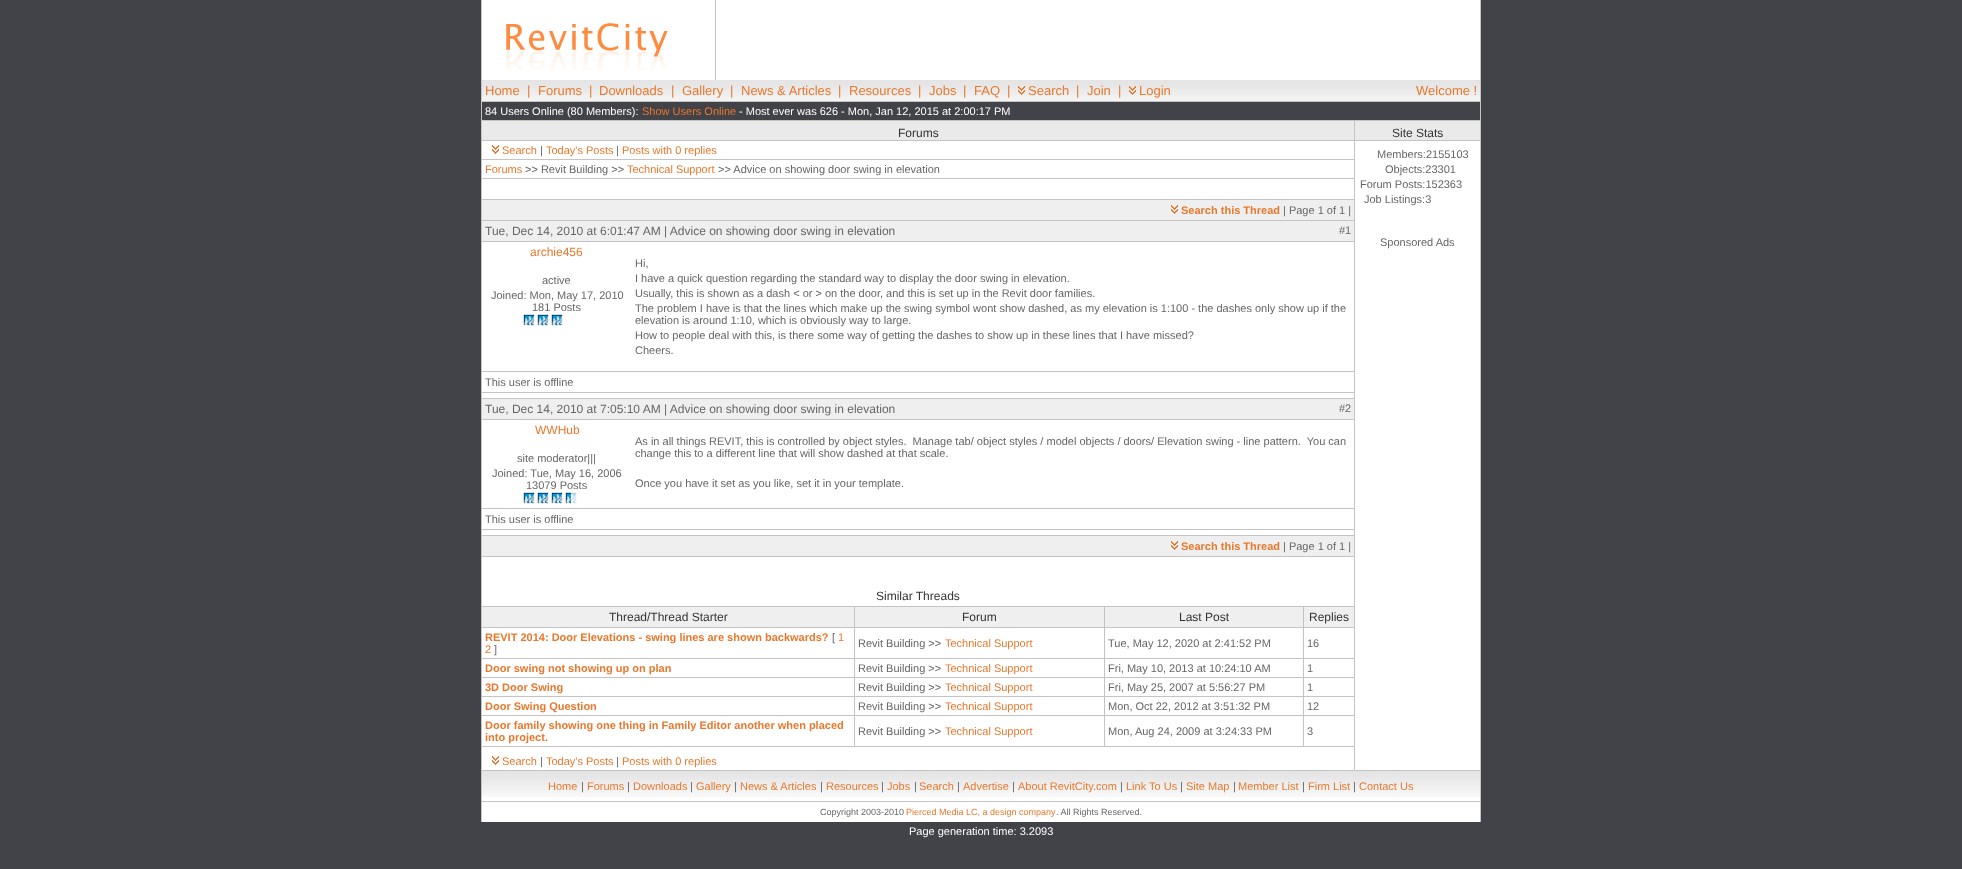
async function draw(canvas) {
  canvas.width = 1962;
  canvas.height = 869;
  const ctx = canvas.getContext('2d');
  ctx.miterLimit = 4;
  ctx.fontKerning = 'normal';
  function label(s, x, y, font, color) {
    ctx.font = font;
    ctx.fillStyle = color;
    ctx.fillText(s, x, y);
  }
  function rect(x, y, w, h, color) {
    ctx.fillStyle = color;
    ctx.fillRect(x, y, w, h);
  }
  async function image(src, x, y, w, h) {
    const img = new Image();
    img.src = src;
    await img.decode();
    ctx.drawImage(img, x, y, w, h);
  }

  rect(0, 0, 1962, 869, '#424249');
  rect(482, 0, 998, 80, '#fff');
  rect(1480, 0, 1, 822, '#c4c4c4');
  rect(481, 0, 1, 822, '#c4c4c4');
  await image('assets/img1.png', 505, 23, 163, 47);
  rect(715, 0, 1, 80, '#c4c4c4');
  await image('assets/img2.png', 482, 80, 998, 21);
  label('Home', 485, 95, '13px Liberation Sans', '#e8782d');
  label('|', 527, 95, '13px Liberation Sans', '#e8782d');
  label('Forums', 538, 95, '13px Liberation Sans', '#e8782d');
  label('|', 589, 95, '13px Liberation Sans', '#e8782d');
  label('Downloads', 599, 95, '13px Liberation Sans', '#e8782d');
  label('|', 671, 95, '13px Liberation Sans', '#e8782d');
  label('Gallery', 682, 95, '13px Liberation Sans', '#e8782d');
  label('|', 730, 95, '13px Liberation Sans', '#e8782d');
  label('News & Articles', 741, 95, '13px Liberation Sans', '#e8782d');
  label('|', 838, 95, '13px Liberation Sans', '#e8782d');
  label('Resources', 849, 95, '13px Liberation Sans', '#e8782d');
  label('|', 918, 95, '13px Liberation Sans', '#e8782d');
  label('Jobs', 929, 95, '13px Liberation Sans', '#e8782d');
  label('|', 963, 95, '13px Liberation Sans', '#e8782d');
  label('FAQ', 974, 95, '13px Liberation Sans', '#e8782d');
  label('|', 1007, 95, '13px Liberation Sans', '#e8782d');
  await image('assets/img3.png', 1018, 86, 7, 9);
  label('Search', 1028, 95, '13px Liberation Sans', '#e8782d');
  label('|', 1076, 95, '13px Liberation Sans', '#e8782d');
  label('Join', 1087, 95, '13px Liberation Sans', '#e8782d');
  label('|', 1118, 95, '13px Liberation Sans', '#e8782d');
  await image('assets/img4.png', 1129, 86, 7, 9);
  label('Login', 1139, 95, '13px Liberation Sans', '#e8782d');
  label('Welcome !', 1416, 95, '13px Liberation Sans', '#e8782d');
  rect(482, 101, 998, 1, '#c4c4c4');
  label('84 Users Online (80 Members):', 485, 115, '11px Liberation Sans', '#fff');
  label('Show Users Online', 642, 115, '11px Liberation Sans', '#e8782d');
  label('- Most ever was 626 - Mon, Jan 12, 2015 at 2:00:17 PM', 739, 115, '11px Liberation Sans', '#fff');
  rect(482, 141, 998, 629, '#fff');
  rect(482, 121, 872, 19, '#eaeaea');
  rect(482, 120, 872, 1, '#c4c4c4');
  rect(482, 140, 872, 1, '#c4c4c4');
  label('Forums', 898, 137, '12px Liberation Sans', '#333');
  await image('assets/img5.png', 492, 145, 7, 9);
  label('Search', 502, 154, '11px Liberation Sans', '#e8782d');
  label('|', 540, 154, '11px Liberation Sans', '#666');
  label('Today\'s Posts', 546, 154, '11px Liberation Sans', '#e8782d');
  label('|', 616, 154, '11px Liberation Sans', '#666');
  label('Posts with 0 replies', 622, 154, '11px Liberation Sans', '#e8782d');
  rect(482, 159, 873, 1, '#c4c4c4');
  rect(482, 178, 873, 1, '#c4c4c4');
  label('Forums', 485, 173, '11px Liberation Sans', '#e8782d');
  label('>> Revit Building >>', 525, 173, '11px Liberation Sans', '#666');
  label('Technical Support', 627, 173, '11px Liberation Sans', '#e8782d');
  label('>> Advice on showing door swing in elevation', 718, 173, '11px Liberation Sans', '#666');
  rect(482, 200, 872, 20, '#efefef');
  rect(482, 199, 873, 1, '#c4c4c4');
  await image('assets/img6.png', 1171, 205, 7, 9);
  label('Search this Thread', 1181, 214, 'bold 11px Liberation Sans', '#e8782d');
  label('| Page 1 of 1 |', 1283, 214, '11px Liberation Sans', '#666');
  rect(482, 221, 872, 20, '#efefef');
  rect(482, 220, 873, 1, '#c4c4c4');
  label('Tue, Dec 14, 2010 at 6:01:47 AM | Advice on showing door swing in elevation', 485, 235, '12px Liberation Sans', '#666');
  label('#1', 1339, 234, '11px Liberation Sans', '#666');
  label('archie456', 530, 256, '12px Liberation Sans', '#e8782d');
  label('active', 542, 284, '11px Liberation Sans', '#666');
  label('Joined: Mon, May 17, 2010', 491, 299, '11px Liberation Sans', '#666');
  label('181 Posts', 532, 311, '11px Liberation Sans', '#666');
  await image('assets/img7.png', 523, 314, 40, 12);
  rect(482, 241, 873, 1, '#c4c4c4');
  label('Hi,', 635, 267, '11px Liberation Sans', '#666');
  label('I have a quick question regarding the standard way to display the door swing in elevation.', 635, 282, '11px Liberation Sans', '#666');
  label('Usually, this is shown as a dash < or > on the door, and this is set up in the Revit door families.', 635, 297, '11px Liberation Sans', '#666');
  label('The problem I have is that the lines which make up the swing symbol wont show dashed, as my elevation is 1:100 - the dashes only show up if the', 635, 312, '11px Liberation Sans', '#666');
  label('elevation is around 1:10, which is obviously way to large.', 635, 324, '11px Liberation Sans', '#666');
  label('How to people deal with this, is there some way of getting the dashes to show up in these lines that I have missed?', 635, 339, '11px Liberation Sans', '#666');
  label('Cheers.', 635, 354, '11px Liberation Sans', '#666');
  rect(482, 371, 873, 1, '#c4c4c4');
  rect(482, 392, 873, 1, '#c4c4c4');
  label('This user is offline', 485, 386, '11px Liberation Sans', '#666');
  rect(482, 399, 872, 20, '#efefef');
  rect(482, 398, 873, 1, '#c4c4c4');
  label('Tue, Dec 14, 2010 at 7:05:10 AM | Advice on showing door swing in elevation', 485, 413, '12px Liberation Sans', '#666');
  label('#2', 1339, 412, '11px Liberation Sans', '#666');
  label('WWHub', 535, 434, '12px Liberation Sans', '#e8782d');
  label('site moderator|||', 517, 462, '11px Liberation Sans', '#666');
  label('Joined: Tue, May 16, 2006', 492, 477, '11px Liberation Sans', '#666');
  label('13079 Posts', 526, 489, '11px Liberation Sans', '#666');
  await image('assets/img8.png', 523, 492, 54, 12);
  rect(482, 419, 873, 1, '#c4c4c4');
  label('As in all things REVIT, this is controlled by object styles.  Manage tab/ object styles / model objects / doors/ Elevation swing - line pattern.  You can', 635, 445, '11px Liberation Sans', '#666');
  label('change this to a different line that will show dashed at that scale.', 635, 457, '11px Liberation Sans', '#666');
  label('Once you have it set as you like, set it in your template.', 635, 487, '11px Liberation Sans', '#666');
  rect(482, 508, 873, 1, '#c4c4c4');
  rect(482, 529, 873, 1, '#c4c4c4');
  label('This user is offline', 485, 523, '11px Liberation Sans', '#666');
  rect(482, 536, 872, 20, '#efefef');
  rect(482, 535, 873, 1, '#c4c4c4');
  rect(482, 556, 873, 1, '#c4c4c4');
  await image('assets/img6.png', 1171, 541, 7, 9);
  label('Search this Thread', 1181, 550, 'bold 11px Liberation Sans', '#e8782d');
  label('| Page 1 of 1 |', 1283, 550, '11px Liberation Sans', '#666');
  label('Similar Threads', 876, 600, '12px Liberation Sans', '#333');
  rect(482, 607, 872, 20, '#efefef');
  rect(1104, 606, 251, 1, '#c4c4c4');
  rect(1104, 627, 251, 1, '#c4c4c4');
  rect(1104, 658, 251, 1, '#c4c4c4');
  rect(1104, 677, 251, 1, '#c4c4c4');
  rect(1104, 696, 251, 1, '#c4c4c4');
  rect(1104, 715, 251, 1, '#c4c4c4');
  rect(1303, 746, 52, 1, '#c4c4c4');
  rect(1303, 715, 1, 32, '#c4c4c4');
  rect(1104, 746, 200, 1, '#c4c4c4');
  rect(1104, 715, 1, 32, '#c4c4c4');
  rect(854, 715, 251, 1, '#c4c4c4');
  rect(1104, 696, 1, 20, '#c4c4c4');
  rect(854, 696, 251, 1, '#c4c4c4');
  rect(1104, 677, 1, 20, '#c4c4c4');
  rect(854, 677, 251, 1, '#c4c4c4');
  rect(1104, 658, 1, 20, '#c4c4c4');
  rect(854, 658, 251, 1, '#c4c4c4');
  rect(1104, 627, 1, 32, '#c4c4c4');
  rect(854, 627, 251, 1, '#c4c4c4');
  rect(1104, 606, 1, 22, '#c4c4c4');
  rect(854, 606, 251, 1, '#c4c4c4');
  rect(854, 746, 251, 1, '#c4c4c4');
  rect(854, 715, 1, 32, '#c4c4c4');
  rect(482, 715, 373, 1, '#c4c4c4');
  rect(854, 696, 1, 20, '#c4c4c4');
  rect(482, 696, 373, 1, '#c4c4c4');
  rect(854, 677, 1, 20, '#c4c4c4');
  rect(482, 677, 373, 1, '#c4c4c4');
  rect(854, 658, 1, 20, '#c4c4c4');
  rect(482, 658, 373, 1, '#c4c4c4');
  rect(854, 627, 1, 32, '#c4c4c4');
  rect(482, 627, 373, 1, '#c4c4c4');
  rect(854, 606, 1, 22, '#c4c4c4');
  rect(482, 606, 373, 1, '#c4c4c4');
  label('Thread/Thread Starter', 609, 621, '12px Liberation Sans', '#333');
  label('Forum', 962, 621, '12px Liberation Sans', '#333');
  rect(1303, 696, 1, 20, '#c4c4c4');
  rect(1303, 677, 1, 20, '#c4c4c4');
  rect(1303, 658, 1, 20, '#c4c4c4');
  rect(1303, 627, 1, 32, '#c4c4c4');
  rect(1303, 606, 1, 22, '#c4c4c4');
  label('Last Post', 1179, 621, '12px Liberation Sans', '#333');
  label('Replies', 1309, 621, '12px Liberation Sans', '#333');
  label('REVIT 2014: Door Elevations - swing lines are shown backwards?', 485, 641, 'bold 11px Liberation Sans', '#e8782d');
  label('[', 832, 641, '11px Liberation Sans', '#666');
  label('1', 838, 641, '11px Liberation Sans', '#e8782d');
  label('2', 485, 653, '11px Liberation Sans', '#e8782d');
  label(']', 494, 653, '11px Liberation Sans', '#666');
  label('Revit Building >>', 858, 647, '11px Liberation Sans', '#666');
  label('Technical Support', 945, 647, '11px Liberation Sans', '#e8782d');
  label('Tue, May 12, 2020 at 2:41:52 PM', 1108, 647, '11px Liberation Sans', '#666');
  label('16', 1307, 647, '11px Liberation Sans', '#666');
  label('Door swing not showing up on plan', 485, 672, 'bold 11px Liberation Sans', '#e8782d');
  label('Revit Building >>', 858, 672, '11px Liberation Sans', '#666');
  label('Technical Support', 945, 672, '11px Liberation Sans', '#e8782d');
  label('Fri, May 10, 2013 at 10:24:10 AM', 1108, 672, '11px Liberation Sans', '#666');
  label('1', 1307, 672, '11px Liberation Sans', '#666');
  label('3D Door Swing', 485, 691, 'bold 11px Liberation Sans', '#e8782d');
  label('Revit Building >>', 858, 691, '11px Liberation Sans', '#666');
  label('Technical Support', 945, 691, '11px Liberation Sans', '#e8782d');
  label('Fri, May 25, 2007 at 5:56:27 PM', 1108, 691, '11px Liberation Sans', '#666');
  label('1', 1307, 691, '11px Liberation Sans', '#666');
  label('Door Swing Question', 485, 710, 'bold 11px Liberation Sans', '#e8782d');
  label('Revit Building >>', 858, 710, '11px Liberation Sans', '#666');
  label('Technical Support', 945, 710, '11px Liberation Sans', '#e8782d');
  label('Mon, Oct 22, 2012 at 3:51:32 PM', 1108, 710, '11px Liberation Sans', '#666');
  label('12', 1307, 710, '11px Liberation Sans', '#666');
  rect(482, 746, 373, 1, '#c4c4c4');
  label('Door family showing one thing in Family Editor another when placed', 485, 729, 'bold 11px Liberation Sans', '#e8782d');
  label('into project.', 485, 741, 'bold 11px Liberation Sans', '#e8782d');
  label('Revit Building >>', 858, 735, '11px Liberation Sans', '#666');
  label('Technical Support', 945, 735, '11px Liberation Sans', '#e8782d');
  label('Mon, Aug 24, 2009 at 3:24:33 PM', 1108, 735, '11px Liberation Sans', '#666');
  label('3', 1307, 735, '11px Liberation Sans', '#666');
  await image('assets/img5.png', 492, 756, 7, 9);
  label('Search', 502, 765, '11px Liberation Sans', '#e8782d');
  label('|', 540, 765, '11px Liberation Sans', '#666');
  label('Today\'s Posts', 546, 765, '11px Liberation Sans', '#e8782d');
  label('|', 616, 765, '11px Liberation Sans', '#666');
  label('Posts with 0 replies', 622, 765, '11px Liberation Sans', '#e8782d');
  rect(1354, 120, 1, 650, '#c4c4c4');
  rect(1355, 121, 125, 19, '#eaeaea');
  rect(1355, 120, 125, 1, '#c4c4c4');
  rect(1355, 140, 125, 1, '#c4c4c4');
  label('Site Stats', 1392, 137, '12px Liberation Sans', '#333');
  label('Members:2155103', 1377, 158, '11px Liberation Sans', '#666');
  label('Objects:23301', 1385, 173, '11px Liberation Sans', '#666');
  label('Forum Posts:152363', 1360, 188, '11px Liberation Sans', '#666');
  label('Job Listings:3', 1364, 203, '11px Liberation Sans', '#666');
  label('Sponsored Ads', 1380, 246, '11px Liberation Sans', '#666');
  rect(482, 802, 998, 20, '#fff');
  await image('assets/img9.png', 482, 771, 998, 30);
  rect(482, 770, 998, 1, '#c4c4c4');
  rect(482, 801, 998, 1, '#c4c4c4');
  label('Home', 548, 790, '11px Liberation Sans', '#e8782d');
  label('|', 581, 790, '11px Liberation Sans', '#666');
  label('Forums', 587, 790, '11px Liberation Sans', '#e8782d');
  label('|', 627, 790, '11px Liberation Sans', '#666');
  label('Downloads', 633, 790, '11px Liberation Sans', '#e8782d');
  label('|', 690, 790, '11px Liberation Sans', '#666');
  label('Gallery', 696, 790, '11px Liberation Sans', '#e8782d');
  label('|', 734, 790, '11px Liberation Sans', '#666');
  label('News & Articles', 740, 790, '11px Liberation Sans', '#e8782d');
  label('|', 820, 790, '11px Liberation Sans', '#666');
  label('Resources', 826, 790, '11px Liberation Sans', '#e8782d');
  label('|', 881, 790, '11px Liberation Sans', '#666');
  label('Jobs', 887, 790, '11px Liberation Sans', '#e8782d');
  label('|', 914, 790, '11px Liberation Sans', '#666');
  label('Search', 919, 790, '11px Liberation Sans', '#e8782d');
  label('|', 957, 790, '11px Liberation Sans', '#666');
  label('Advertise', 963, 790, '11px Liberation Sans', '#e8782d');
  label('|', 1012, 790, '11px Liberation Sans', '#666');
  label('About RevitCity.com', 1018, 790, '11px Liberation Sans', '#e8782d');
  label('|', 1120, 790, '11px Liberation Sans', '#666');
  label('Link To Us', 1126, 790, '11px Liberation Sans', '#e8782d');
  label('|', 1180, 790, '11px Liberation Sans', '#666');
  label('Site Map', 1186, 790, '11px Liberation Sans', '#e8782d');
  label('|', 1233, 790, '11px Liberation Sans', '#666');
  label('Member List', 1238, 790, '11px Liberation Sans', '#e8782d');
  label('|', 1302, 790, '11px Liberation Sans', '#666');
  label('Firm List', 1308, 790, '11px Liberation Sans', '#e8782d');
  label('|', 1353, 790, '11px Liberation Sans', '#666');
  label('Contact Us', 1359, 790, '11px Liberation Sans', '#e8782d');
  label('Copyright 2003-2010', 820, 815, '9px Liberation Sans', '#666');
  label('Pierced Media LC, a design company', 906, 815, '9px Liberation Sans', '#e8782d');
  label('. All Rights Reserved.', 1056, 815, '9px Liberation Sans', '#666');
  label('Page generation time: 3.2093', 909, 835, '11px Liberation Sans', '#fff');
}

draw(document.querySelector('canvas'));
